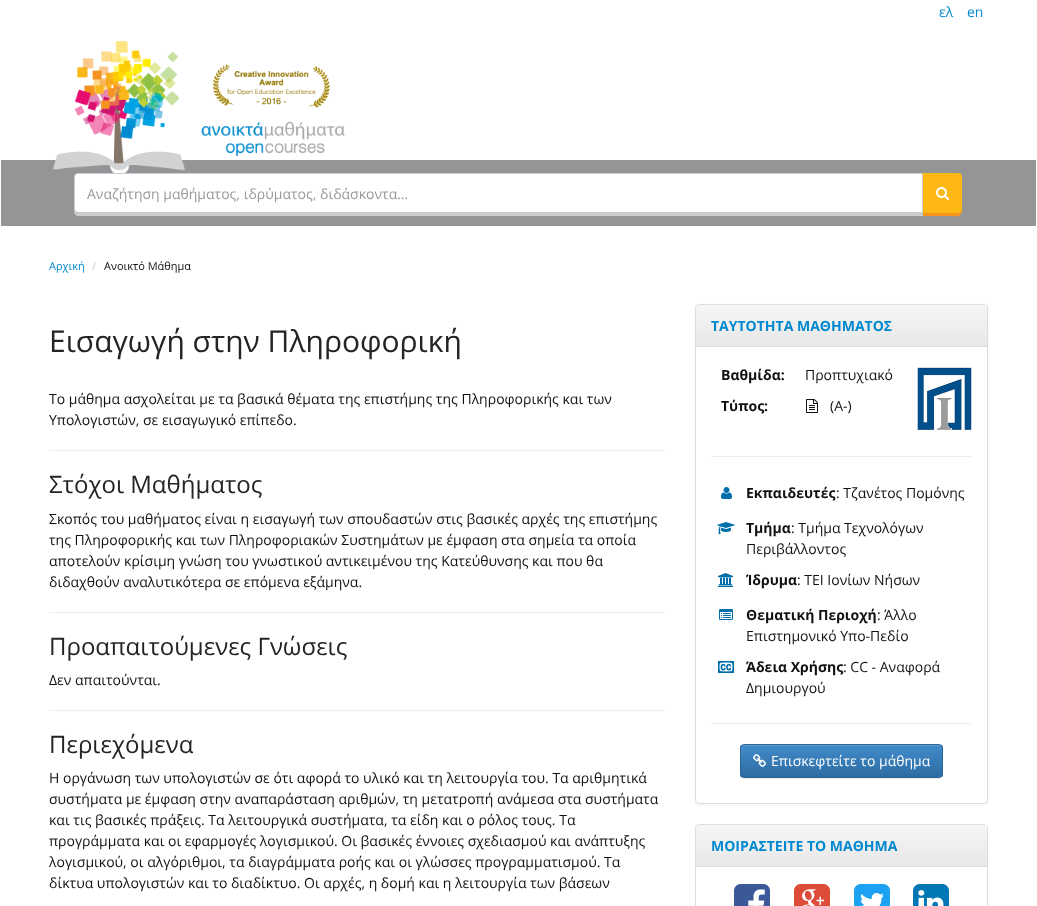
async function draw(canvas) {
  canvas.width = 1037;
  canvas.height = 906;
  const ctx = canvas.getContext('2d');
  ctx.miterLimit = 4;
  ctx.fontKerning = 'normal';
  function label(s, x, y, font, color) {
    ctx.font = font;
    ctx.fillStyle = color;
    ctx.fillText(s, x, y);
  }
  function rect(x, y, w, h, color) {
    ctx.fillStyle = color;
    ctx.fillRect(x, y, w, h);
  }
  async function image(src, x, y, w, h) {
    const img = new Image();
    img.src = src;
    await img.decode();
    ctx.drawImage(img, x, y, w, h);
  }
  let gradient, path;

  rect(0, 0, 1037, 906, '#fff');
  label('ελ', 939, 17, '14px Open Sans', '#0089d0');
  label('en', 967, 17, '14px Open Sans', '#0089d0');
  rect(1, 160, 1035, 66, '#959595');
  await image('assets/img1.png', 53, 41, 292, 134);
  ctx.fillStyle = '#f7941e';
  path = new Path2D('M922 213V216H946C955 216 962 219 962 209C962 211 960 213 958 213Z');
  ctx.fill(path);
  ctx.fillStyle = '#fdb813';
  ctx.beginPath();
  ctx.roundRect(922, 173, 40, 40, [0, 4, 4, 0]);
  ctx.fill();
  ctx.fillStyle = '#ccc';
  path = new Path2D('M74 209V212C74 214 76 216 78 216H923V213H78C76 213 74 211 74 209Z');
  ctx.fill(path);
  ctx.fillStyle = '#fff';
  ctx.beginPath();
  ctx.roundRect(74.5, 173.5, 848, 39, [3.5, 0, 0, 3.5]);
  ctx.fill();
  ctx.strokeStyle = '#ccc';
  ctx.stroke();
  label('Αναζήτηση μαθήματος, ιδρύματος, διδάσκοντα...', 87, 199, '14px Open Sans', '#999');
  await image('assets/img2.png', 936, 187, 13, 13);
  label('Αρχική', 49, 270, '11px Open Sans', '#0089d0');
  label('/', 92, 270, '11px Open Sans', '#ccc');
  label('Ανοικτό Μάθημα', 104, 270, '11px Open Sans', '#111');
  label('Εισαγωγή στην Πληροφορική', 49, 352, '30px Open Sans', '#242424');
  label('Το μάθημα ασχολείται με τα βασικά θέματα της επιστήμης της Πληροφορικής και των', 49, 404, '14px Open Sans', '#111');
  label('Υπολογιστών, σε εισαγωγικό επίπεδο.', 49, 425, '14px Open Sans', '#111');
  rect(49, 450, 616, 1, '#eee');
  label('Στόχοι Μαθήματος', 49, 493, '24px Open Sans', '#242424');
  label('Σκοπός του μαθήματος είναι η εισαγωγή των σπουδαστών στις βασικές αρχές της επιστήμης', 49, 524, '14px Open Sans', '#111');
  label('της Πληροφορικής και των Πληροφοριακών Συστημάτων με έμφαση στα σημεία τα οποία', 49, 545, '14px Open Sans', '#111');
  label('αποτελούν κρίσιμη γνώση του γνωστικού αντικειμένου της Κατεύθυνσης και που θα', 49, 566, '14px Open Sans', '#111');
  label('διδαχθούν αναλυτικότερα σε επόμενα εξάμηνα.', 49, 587, '14px Open Sans', '#111');
  rect(49, 612, 616, 1, '#eee');
  label('Προαπαιτούμενες Γνώσεις', 49, 655, '24px Open Sans', '#242424');
  label('Δεν απαιτούνται.', 49, 685, '14px Open Sans', '#111');
  rect(49, 710, 616, 1, '#eee');
  label('Περιεχόμενα', 49, 753, '24px Open Sans', '#242424');
  label('Η οργάνωση των υπολογιστών σε ότι αφορά το υλικό και τη λειτουργία του. Τα αριθμητικά', 49, 783, '14px Open Sans', '#111');
  label('συστήματα με έμφαση στην αναπαράσταση αριθμών, τη μετατροπή ανάμεσα στα συστήματα', 49, 804, '14px Open Sans', '#111');
  label('και τις βασικές πράξεις. Τα λειτουργικά συστήματα, τα είδη και ο ρόλος τους. Τα', 49, 825, '14px Open Sans', '#111');
  label('προγράμματα και οι εφαρμογές λογισμικού. Οι βασικές έννοιες σχεδιασμού και ανάπτυξης', 49, 846, '14px Open Sans', '#111');
  label('λογισμικού, οι αλγόριθμοι, τα διαγράμματα ροής και οι γλώσσες προγραμματισμού. Τα', 49, 867, '14px Open Sans', '#111');
  label('δίκτυα υπολογιστών και το διαδίκτυο. Οι αρχές, η δομή και η λειτουργία των βάσεων', 49, 888, '14px Open Sans', '#111');
  ctx.fillStyle = '#0000000d';
  ctx.filter = 'blur(1px)';
  ctx.beginPath();
  ctx.roundRect(695, 305, 293, 500, 4);
  ctx.fill();
  ctx.filter = 'none';
  ctx.fillStyle = '#fff';
  ctx.beginPath();
  ctx.roundRect(695.5, 304.5, 292, 499, 3.5);
  ctx.fill();
  ctx.strokeStyle = '#ddd';
  ctx.stroke();
  gradient = ctx.createLinearGradient(842, 305, 842, 346);
  gradient.addColorStop(0, '#f5f5f5');
  gradient.addColorStop(1, '#e8e8e8');
  ctx.fillStyle = gradient;
  ctx.beginPath();
  ctx.roundRect(696, 305, 291, 41, [3, 3, 0, 0]);
  ctx.fill();
  rect(696, 346, 291, 1, '#ddd');
  label('ΤΑΥΤΟΤΗΤΑ ΜΑΘΗΜΑΤΟΣ', 711, 331, 'bold 14px Open Sans', '#0089d0');
  label('Βαθμίδα:', 721, 380, 'bold 14px Open Sans', '#111');
  label('Τύπος:', 721, 411, 'bold 14px Open Sans', '#111');
  label('Προπτυχιακό', 805, 380, '14px Open Sans', '#111');
  await image('assets/img3.png', 806, 399, 12, 14);
  label('(A-)', 830, 411, '14px Open Sans', '#111');
  await image('assets/img4.png', 917, 367, 55, 63);
  rect(711, 456, 261, 1, '#eee');
  await image('assets/img5.png', 721, 487, 11, 12);
  label('Εκπαιδευτές', 746, 498, 'bold 14px Open Sans', '#111');
  label(': Τζανέτος Πομόνης', 836, 498, '14px Open Sans', '#111');
  await image('assets/img6.png', 717, 522, 18, 12);
  label('Τμήμα', 746, 533, 'bold 14px Open Sans', '#111');
  label(': Τμήμα Τεχνολόγων', 791, 533, '14px Open Sans', '#111');
  label('Περιβάλλοντος', 746, 554, '14px Open Sans', '#111');
  await image('assets/img7.png', 718, 573, 15, 14);
  label('Ίδρυμα', 746, 585, 'bold 14px Open Sans', '#111');
  label(': ΤΕΙ Ιονίων Νήσων', 797, 585, '14px Open Sans', '#111');
  await image('assets/img8.png', 719, 609, 14, 11);
  label('Θεματική Περιοχή', 746, 620, 'bold 14px Open Sans', '#111');
  label(': Άλλο', 877, 620, '14px Open Sans', '#111');
  label('Επιστημονικό Υπο-Πεδίο', 746, 641, '14px Open Sans', '#111');
  await image('assets/img9.png', 718, 661, 16, 12);
  label('Άδεια Χρήσης', 746, 672, 'bold 14px Open Sans', '#111');
  label(': CC - Αναφορά', 843, 672, '14px Open Sans', '#111');
  label('Δημιουργού', 746, 693, '14px Open Sans', '#111');
  rect(711, 723, 261, 1, '#eee');
  ctx.fillStyle = '#00000012';
  ctx.filter = 'blur(0.5px)';
  ctx.beginPath();
  ctx.roundRect(740, 745, 203, 34, 4);
  ctx.fill();
  ctx.filter = 'none';
  ctx.save();
  ctx.beginPath();
  ctx.roundRect(740, 744, 203, 34, 4);
  ctx.clip();
  gradient = ctx.createLinearGradient(842, 745, 842, 777);
  gradient.addColorStop(0, '#428bca');
  gradient.addColorStop(1, '#2d6ca2');
  ctx.fillStyle = gradient;
  ctx.fillRect(740, 745, 203, 32);
  ctx.restore();
  ctx.fillStyle = '#5e9cd1';
  path = new Path2D('M744 746H939C941 746 942 747 942 749C942 747 941 745 939 745H744C742 745 741 747 741 749C741 747 742 746 744 746Z');
  ctx.fill(path);
  ctx.beginPath();
  ctx.roundRect(740.5, 744.5, 202, 33, 3.5);
  ctx.strokeStyle = '#2b669a';
  ctx.stroke();
  await image('assets/img10.png', 753, 754, 13, 13);
  label('Επισκεφτείτε το μάθημα', 771, 766, '14px Open Sans', '#fff');
  ctx.beginPath();
  ctx.roundRect(695.5, 824.5, 292, 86, 3.5);
  ctx.strokeStyle = '#ddd';
  ctx.stroke();
  gradient = ctx.createLinearGradient(842, 825, 842, 866);
  gradient.addColorStop(0, '#f5f5f5');
  gradient.addColorStop(1, '#e8e8e8');
  ctx.fillStyle = gradient;
  ctx.beginPath();
  ctx.roundRect(696, 825, 291, 41, [3, 3, 0, 0]);
  ctx.fill();
  rect(696, 866, 291, 1, '#ddd');
  label('ΜΟΙΡΑΣΤΕΙΤΕ ΤΟ ΜΑΘΗΜΑ', 711, 851, 'bold 14px Open Sans', '#0089d0');
  await image('assets/img11.png', 734, 884, 36, 22);
  await image('assets/img12.png', 794, 884, 36, 22);
  await image('assets/img13.png', 854, 884, 36, 22);
  await image('assets/img14.png', 913, 884, 36, 22);
}

draw(document.querySelector('canvas'));
